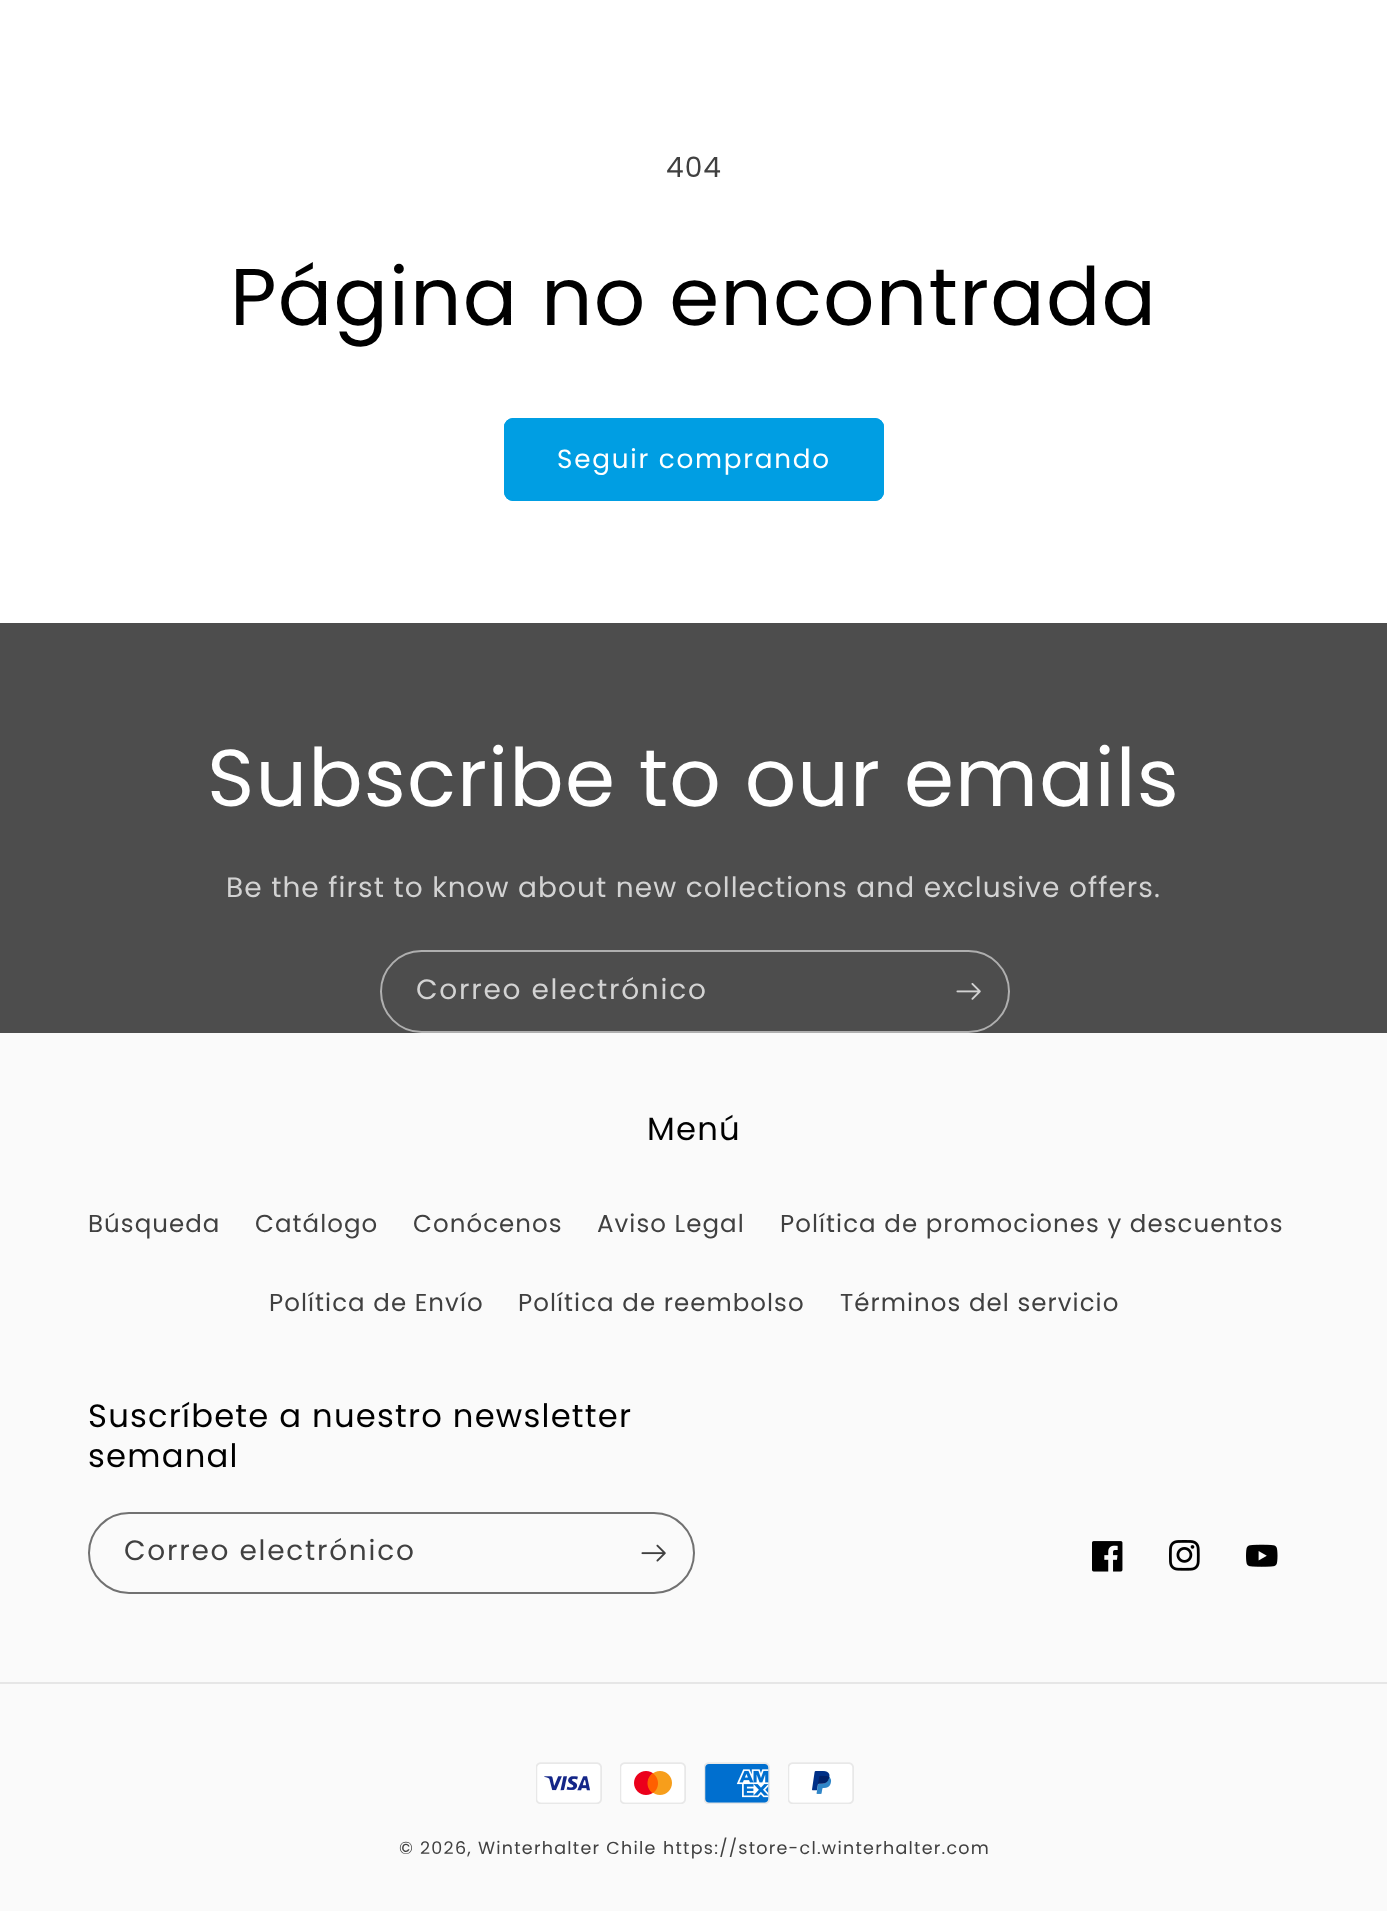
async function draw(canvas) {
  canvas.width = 1387;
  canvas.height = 1911;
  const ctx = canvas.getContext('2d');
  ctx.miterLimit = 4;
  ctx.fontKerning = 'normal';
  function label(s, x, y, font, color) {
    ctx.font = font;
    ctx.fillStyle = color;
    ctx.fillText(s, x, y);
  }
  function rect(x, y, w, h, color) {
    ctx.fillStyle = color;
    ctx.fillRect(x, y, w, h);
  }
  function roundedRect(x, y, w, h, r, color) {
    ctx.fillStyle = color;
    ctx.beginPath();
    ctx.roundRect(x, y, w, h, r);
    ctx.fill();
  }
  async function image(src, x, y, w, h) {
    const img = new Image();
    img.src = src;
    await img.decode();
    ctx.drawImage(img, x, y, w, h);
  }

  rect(0, 0, 1387, 1911, '#fff');
  ctx.letterSpacing = '1.05px';
  label('404', 666, 177, '28px Poppins', '#404040');
  ctx.letterSpacing = '1.2px';
  label('Página no encontrada', 230, 325, '80.5px Poppins', '#000');
  roundedRect(504, 418, 380, 83, 9, '#009ee3');
  ctx.beginPath();
  ctx.roundRect(505, 419, 378, 81, 8);
  ctx.strokeStyle = '#009ee3';
  ctx.lineWidth = 2;
  ctx.stroke();
  ctx.letterSpacing = '1.75px';
  label('Seguir comprando', 557, 468, '26.25px Poppins', '#fff');
  rect(0, 623, 1387, 410, '#4d4d4d');
  ctx.letterSpacing = '1.2px';
  label('Subscribe to our emails', 207, 806, '80.5px Poppins', '#fff');
  ctx.letterSpacing = '1.05px';
  label('Be the first to know about new collections and exclusive offers.', 226, 897, '28px Poppins', '#d3d3d3');
  ctx.beginPath();
  ctx.roundRect(381, 951, 628, 81, 40.5);
  ctx.strokeStyle = '#afafaf';
  ctx.stroke();
  ctx.letterSpacing = '1.75px';
  label('Correo electrónico', 416, 999, '28px Poppins', '#d3d3d3');
  await image('assets/img1.png', 956, 983, 25, 17);
  rect(0, 1033, 1387, 878, '#fafafa');
  ctx.letterSpacing = '1.2px';
  label('Menú', 647, 1140, '32.25px Poppins', '#000');
  ctx.letterSpacing = '1.05px';
  label('Búsqueda', 88, 1232, '24.5px Poppins', '#404040');
  label('Catálogo', 255, 1232, '24.5px Poppins', '#404040');
  label('Conócenos', 413, 1232, '24.5px Poppins', '#404040');
  label('Aviso Legal', 597, 1232, '24.5px Poppins', '#404040');
  label('Política de promociones y descuentos', 780, 1232, '24.5px Poppins', '#404040');
  label('Política de Envío', 269, 1311, '24.5px Poppins', '#404040');
  label('Política de reembolso', 518, 1311, '24.5px Poppins', '#404040');
  label('Términos del servicio', 840, 1311, '24.5px Poppins', '#404040');
  ctx.letterSpacing = '1.2px';
  label('Suscríbete a nuestro newsletter', 88, 1427, '32.25px Poppins', '#000');
  label('semanal', 88, 1467, '32.25px Poppins', '#000');
  ctx.beginPath();
  ctx.roundRect(89, 1513, 605, 80, 40);
  ctx.strokeStyle = '#717171';
  ctx.stroke();
  ctx.letterSpacing = '1.75px';
  label('Correo electrónico', 124, 1560, '28px Poppins', '#404040');
  await image('assets/img2.png', 641, 1544, 25, 18);
  await image('assets/img3.png', 1092, 1541, 31, 31);
  await image('assets/img4.png', 1169, 1540, 31, 31);
  await image('assets/img5.png', 1246, 1544, 32, 23);
  rect(0, 1682, 1387, 2, '#e6e6e6');
  await image('assets/img6.png', 536, 1762, 66, 42);
  await image('assets/img7.png', 620, 1762, 66, 42);
  await image('assets/img8.png', 704, 1762, 66, 42);
  await image('assets/img9.png', 788, 1762, 66, 42);
  ctx.letterSpacing = '1.25px';
  label('© 2026, Winterhalter Chile', 399, 1854, '17.5px Poppins', '#404040');
  label('https://store-cl.winterhalter.com', 663, 1854, '17.5px Poppins', '#404040');
}

draw(document.querySelector('canvas'));
